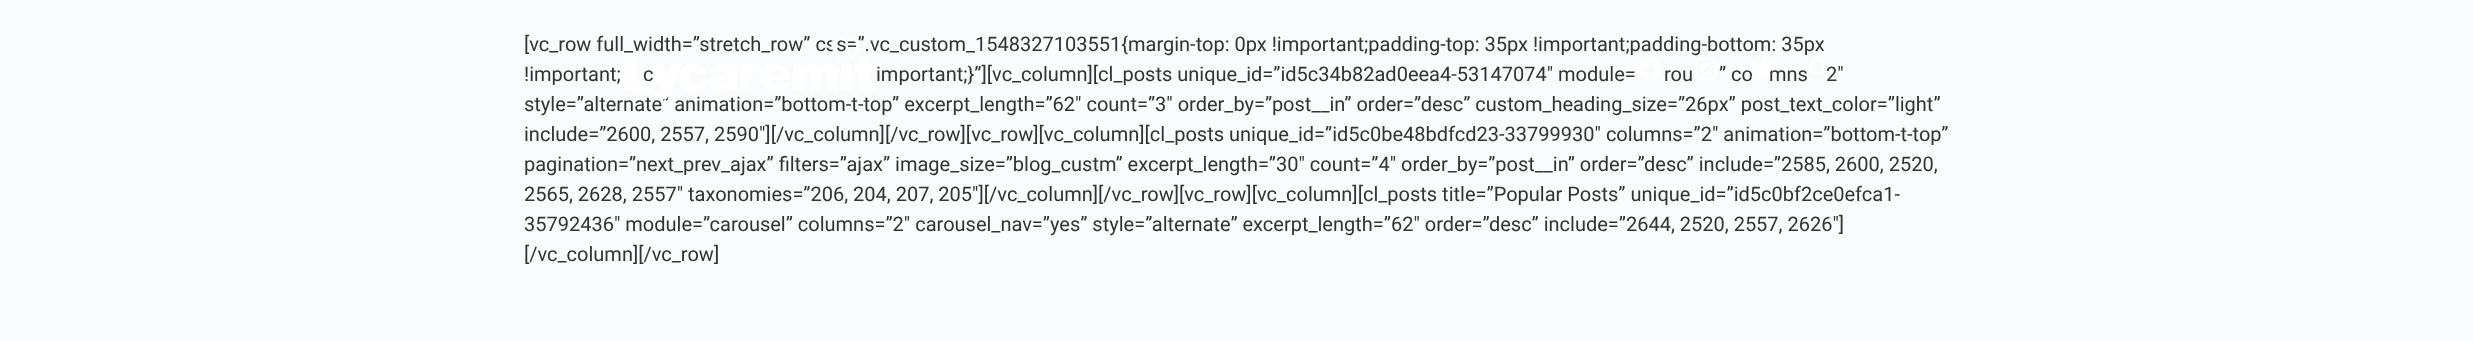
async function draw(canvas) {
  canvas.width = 2473;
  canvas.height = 341;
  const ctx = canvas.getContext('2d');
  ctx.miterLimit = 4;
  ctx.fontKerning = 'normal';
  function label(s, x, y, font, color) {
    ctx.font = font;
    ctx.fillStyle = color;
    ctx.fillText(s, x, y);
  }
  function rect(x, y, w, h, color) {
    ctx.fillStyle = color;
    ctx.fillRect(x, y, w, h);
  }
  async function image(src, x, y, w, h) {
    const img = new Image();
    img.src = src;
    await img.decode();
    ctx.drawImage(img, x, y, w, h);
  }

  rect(0, 0, 2473, 341, '#f9fbfd');
  label('[vc_row full_width=”stretch_row” css=”.vc_custom_1548327103551{margin-top: 0px !important;padding-top: 35px !important;padding-bottom: 35px', 524, 51, '20px Roboto', '#333');
  label('!important;', 524, 81, '20px Roboto', '#333');
  label('c', 643, 81, '20px Roboto', '#333');
  label('important;}”][vc_column][cl_posts unique_id=”id5c34b82ad0eea4-53147074″ module=', 876, 81, '20px Roboto', '#333');
  label('rou', 1664, 81, '20px Roboto', '#333');
  label('” co', 1719, 81, '20px Roboto', '#333');
  label('mns', 1769, 81, '20px Roboto', '#333');
  label('2″', 1826, 81, '20px Roboto', '#333');
  label('style=”alternate” animation=”bottom-t-top” excerpt_length=”62″ count=”3″ order_by=”post__in” order=”desc” custom_heading_size=”26px” post_text_color=”light”', 524, 111, '20px Roboto', '#333');
  label('include=”2600, 2557, 2590″][/vc_column][/vc_row][vc_row][vc_column][cl_posts unique_id=”id5c0be48bdfcd23-33799930″ columns=”2″ animation=”bottom-t-top”', 524, 141, '20px Roboto', '#333');
  label('pagination=”next_prev_ajax” filters=”ajax” image_size=”blog_custm” excerpt_length=”30″ count=”4″ order_by=”post__in” order=”desc” include=”2585, 2600, 2520,', 524, 171, '20px Roboto', '#333');
  label('2565, 2628, 2557″ taxonomies=”206, 204, 207, 205″][/vc_column][/vc_row][vc_row][vc_column][cl_posts title=”Popular Posts” unique_id=”id5c0bf2ce0efca1-', 524, 201, '20px Roboto', '#333');
  label('35792436″ module=”carousel” columns=”2″ carousel_nav=”yes” style=”alternate” excerpt_length=”62″ order=”desc” include=”2644, 2520, 2557, 2626″]', 524, 231, '20px Roboto', '#333');
  label('[/vc_column][/vc_row]', 524, 261, '20px Roboto', '#333');
  await image('assets/img1.png', 625, 38, 250, 62);
  await image('assets/img2.png', 1638, 57, 24, 24);
  await image('assets/img3.png', 1695, 58, 23, 22);
  await image('assets/img4.png', 1750, 59, 24, 20);
  await image('assets/img5.png', 1809, 59, 20, 20);
}

draw(document.querySelector('canvas'));
